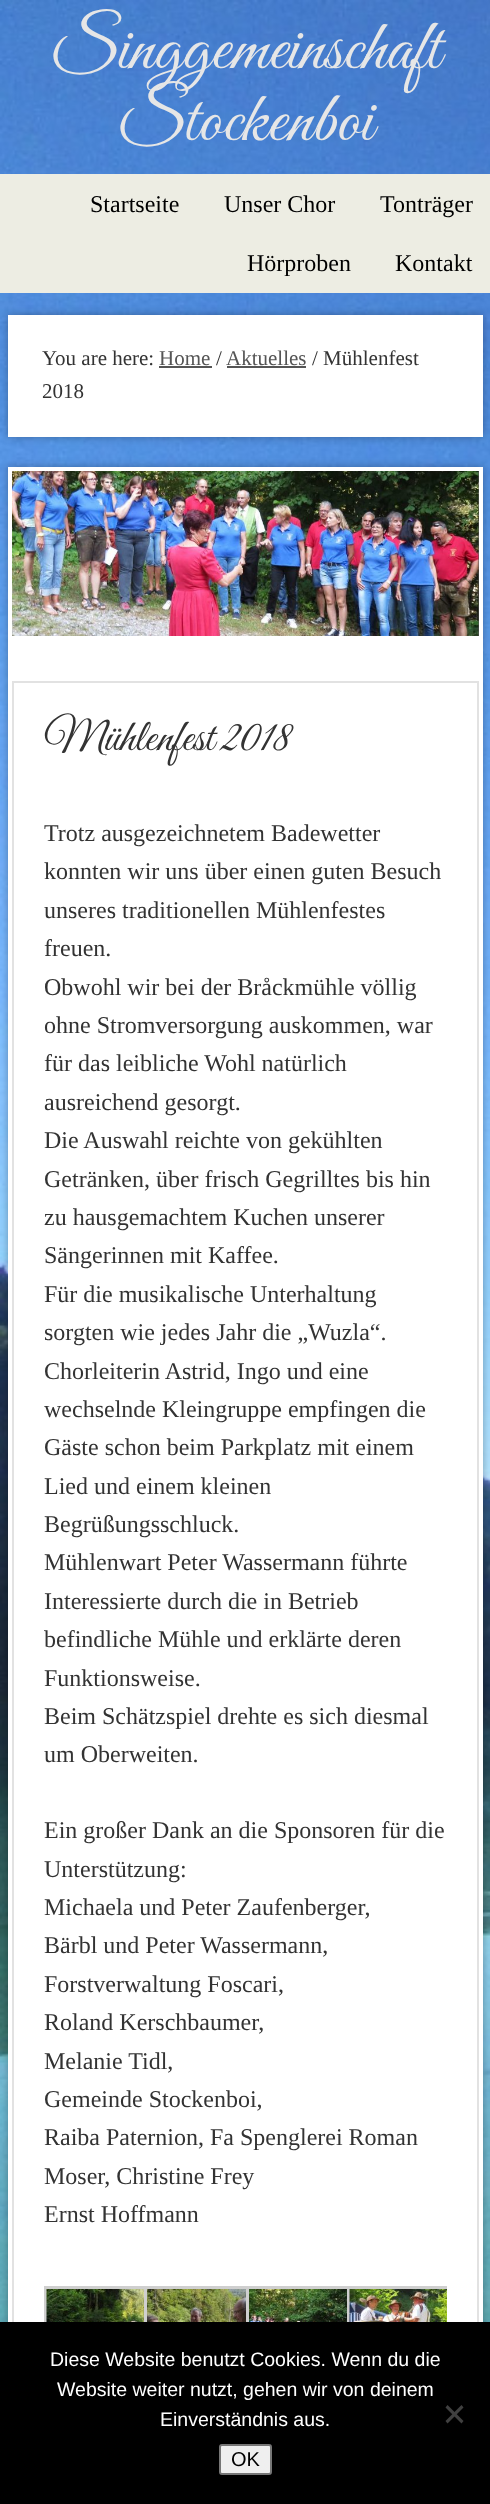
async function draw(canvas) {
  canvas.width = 490;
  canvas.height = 2504;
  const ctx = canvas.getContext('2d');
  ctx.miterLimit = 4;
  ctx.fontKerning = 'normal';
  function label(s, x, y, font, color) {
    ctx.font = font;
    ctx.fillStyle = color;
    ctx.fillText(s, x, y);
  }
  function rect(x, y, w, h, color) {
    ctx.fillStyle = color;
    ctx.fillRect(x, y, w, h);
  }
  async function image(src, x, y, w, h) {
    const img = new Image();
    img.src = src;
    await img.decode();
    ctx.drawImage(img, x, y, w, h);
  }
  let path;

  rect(0, 0, 490, 2504, '#fff');
  await image('assets/img1.png', 0, 0, 490, 2322);
  label('Singgemeinschaft', 50, 68, '72px Great Vibes', '#e6e6e6');
  label('Stockenboi', 117, 140, '72px Great Vibes', '#e6e6e6');
  rect(0, 174, 490, 119, '#edede3');
  label('Startseite', 90, 212, '24px Liberation Serif', '#000');
  label('Unser Chor', 224, 212, '24px Liberation Serif', '#000');
  label('Tonträger', 380, 212, '24px Liberation Serif', '#000');
  label('Hörproben', 247, 271, '24px Liberation Serif', '#000');
  label('Kontakt', 395, 271, '24px Liberation Serif', '#000');
  ctx.fillStyle = '#0000004d';
  ctx.filter = 'blur(4.5px)';
  ctx.beginPath();
  ctx.rect(8, 315, 475, 122);
  ctx.fill();
  ctx.filter = 'none';
  rect(8, 315, 475, 122, '#fff');
  label('You are here:', 42, 365, '21px Liberation Serif', '#333');
  label('Home', 159, 365, '21px Liberation Serif', '#555');
  rect(159, 366, 53, 2, '#555');
  label('/', 216, 365, '21px Liberation Serif', '#333');
  label('Aktuelles', 226, 365, '21px Liberation Serif', '#555');
  rect(227, 366, 79, 2, '#555');
  label('/ Mühlenfest', 312, 365, '21px Liberation Serif', '#333');
  label('2018', 42, 398, '21px Liberation Serif', '#333');
  ctx.fillStyle = '#0000004d';
  ctx.filter = 'blur(4.5px)';
  ctx.beginPath();
  ctx.rect(8, 467, 475, 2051);
  ctx.fill();
  ctx.filter = 'none';
  rect(8, 467, 475, 1855, '#fff');
  rect(478, 471, 1, 165, '#555');
  await image('assets/img2.png', 12, 471, 467, 165);
  ctx.strokeStyle = '#e2e2e2';
  ctx.lineWidth = 2;
  ctx.strokeRect(13, 682, 465, 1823);
  label('Mühlenfest 2018', 44, 750, '45px Great Vibes', '#333');
  ctx.save();
  ctx.beginPath();
  ctx.rect(44, 815, 403, 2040);
  ctx.clip();
  label('Trotz ausgezeichnetem Badewetter', 44, 841, '24px Liberation Serif', '#333');
  ctx.restore();
  label('konnten wir uns über einen guten Besuch', 44, 879, '24px Liberation Serif', '#333');
  label('unseres traditionellen Mühlenfestes', 44, 918, '24px Liberation Serif', '#333');
  label('freuen.', 44, 956, '24px Liberation Serif', '#333');
  label('Obwohl wir bei der Bråckmühle völlig', 44, 995, '24px Liberation Serif', '#333');
  label('ohne Stromversorgung auskommen, war', 44, 1033, '24px Liberation Serif', '#333');
  label('für das leibliche Wohl natürlich', 44, 1071, '24px Liberation Serif', '#333');
  label('ausreichend gesorgt.', 44, 1110, '24px Liberation Serif', '#333');
  label('Die Auswahl reichte von gekühlten', 44, 1148, '24px Liberation Serif', '#333');
  label('Getränken, über frisch Gegrilltes bis hin', 44, 1187, '24px Liberation Serif', '#333');
  label('zu hausgemachtem Kuchen unserer', 44, 1225, '24px Liberation Serif', '#333');
  label('Sängerinnen mit Kaffee.', 44, 1263, '24px Liberation Serif', '#333');
  label('Für die musikalische Unterhaltung', 44, 1302, '24px Liberation Serif', '#333');
  label('sorgten wie jedes Jahr die „Wuzla“.', 44, 1340, '24px Liberation Serif', '#333');
  label('Chorleiterin Astrid, Ingo und eine', 44, 1379, '24px Liberation Serif', '#333');
  label('wechselnde Kleingruppe empfingen die', 44, 1417, '24px Liberation Serif', '#333');
  label('Gäste schon beim Parkplatz mit einem', 44, 1455, '24px Liberation Serif', '#333');
  label('Lied und einem kleinen', 44, 1494, '24px Liberation Serif', '#333');
  label('Begrüßungsschluck.', 44, 1532, '24px Liberation Serif', '#333');
  label('Mühlenwart Peter Wassermann führte', 44, 1570, '24px Liberation Serif', '#333');
  label('Interessierte durch die in Betrieb', 44, 1609, '24px Liberation Serif', '#333');
  label('befindliche Mühle und erklärte deren', 44, 1647, '24px Liberation Serif', '#333');
  label('Funktionsweise.', 44, 1686, '24px Liberation Serif', '#333');
  label('Beim Schätzspiel drehte es sich diesmal', 44, 1724, '24px Liberation Serif', '#333');
  label('um Oberweiten.', 44, 1762, '24px Liberation Serif', '#333');
  label('Ein großer Dank an die Sponsoren für die', 44, 1838, '24px Liberation Serif', '#333');
  label('Unterstützung:', 44, 1877, '24px Liberation Serif', '#333');
  label('Michaela und Peter Zaufenberger,', 44, 1915, '24px Liberation Serif', '#333');
  label('Bärbl und Peter Wassermann,', 44, 1953, '24px Liberation Serif', '#333');
  label('Forstverwaltung Foscari,', 44, 1992, '24px Liberation Serif', '#333');
  label('Roland Kerschbaumer,', 44, 2030, '24px Liberation Serif', '#333');
  label('Melanie Tidl,', 44, 2069, '24px Liberation Serif', '#333');
  label('Gemeinde Stockenboi,', 44, 2107, '24px Liberation Serif', '#333');
  label('Raiba Paternion, Fa Spenglerei Roman', 44, 2145, '24px Liberation Serif', '#333');
  label('Moser, Christine Frey', 44, 2184, '24px Liberation Serif', '#333');
  label('Ernst Hoffmann', 44, 2222, '24px Liberation Serif', '#333');
  ctx.strokeStyle = '#cfcfcf';
  ctx.lineWidth = 3;
  ctx.strokeRect(45.5, 2287.5, 103, 104);
  await image('assets/img3.png', 46, 2289, 98, 33);
  ctx.strokeRect(145.5, 2287.5, 105, 104);
  await image('assets/img4.png', 147, 2289, 99, 33);
  ctx.strokeRect(247.5, 2287.5, 104, 104);
  await image('assets/img5.png', 249, 2289, 98, 33);
  ctx.save();
  ctx.beginPath();
  ctx.rect(44, 815, 403, 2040);
  ctx.clip();
  ctx.strokeRect(348.5, 2287.5, 103, 104);
  ctx.restore();
  await image('assets/img6.png', 349, 2289, 98, 33);
  rect(0, 2322, 490, 182, '#000');
  label('Diese Website benutzt Cookies. Wenn du die', 50, 2366, '19.5px Liberation Sans', '#fff');
  label('Website weiter nutzt, gehen wir von deinem', 57, 2396, '19.5px Liberation Sans', '#fff');
  label('Einverständnis aus.', 160, 2426, '19.5px Liberation Sans', '#fff');
  ctx.fillStyle = '#404040';
  path = new Path2D('M461.5 2405L463.5 2407.5L447.5 2423.5L445.5 2421Z');
  ctx.fill(path);
  path = new Path2D('M445.5 2407.5L447.5 2405L463.5 2421L461.5 2423.5Z');
  ctx.fill(path);
  ctx.fillStyle = '#efefef';
  ctx.beginPath();
  ctx.roundRect(220, 2445, 51, 29, 2);
  ctx.fill();
  ctx.strokeStyle = '#767676';
  ctx.lineWidth = 2;
  ctx.stroke();
  label('OK', 231, 2466, '20px Liberation Sans', '#000');
}

draw(document.querySelector('canvas'));
